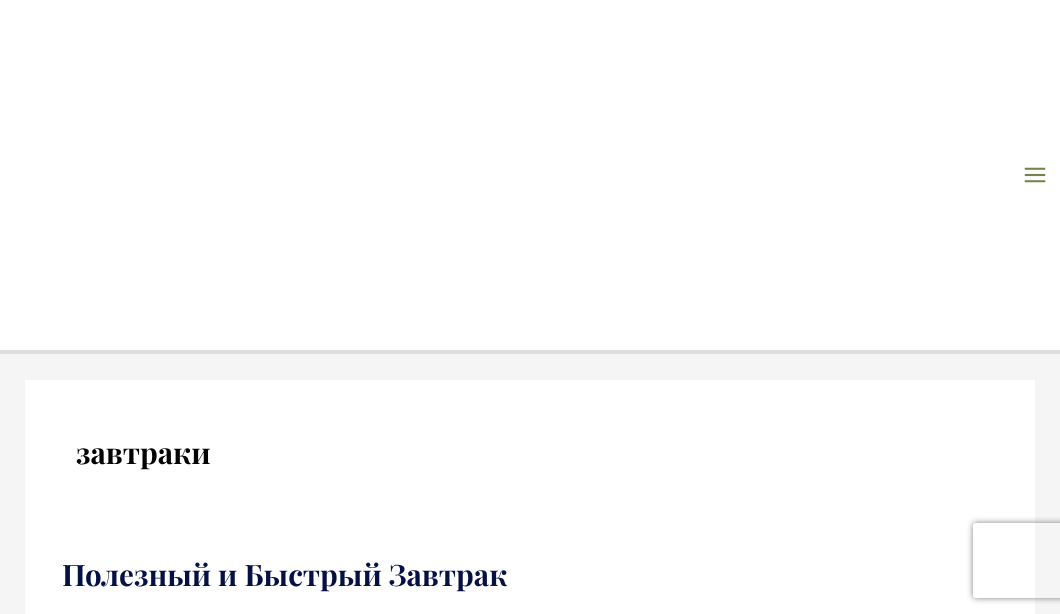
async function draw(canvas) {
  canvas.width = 1060;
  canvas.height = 614;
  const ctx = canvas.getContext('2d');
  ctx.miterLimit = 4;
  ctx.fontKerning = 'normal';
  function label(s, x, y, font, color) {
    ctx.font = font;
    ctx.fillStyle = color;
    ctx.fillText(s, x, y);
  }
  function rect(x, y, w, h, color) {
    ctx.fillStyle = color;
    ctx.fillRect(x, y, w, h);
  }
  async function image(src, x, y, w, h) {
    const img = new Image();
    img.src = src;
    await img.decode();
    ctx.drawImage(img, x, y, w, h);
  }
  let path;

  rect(0, 0, 1060, 614, '#f5f5f5');
  rect(0, 0, 1060, 350, '#fff');
  rect(0, 350, 1060, 4, '#ddd');
  await image('assets/img1.png', 1024, 167, 22, 16);
  rect(25, 380, 1010, 234, '#fff');
  label('завтраки', 76, 464, 'bold 29.6px Playfair Display', '#000');
  label('Полезный и Быстрый Завтрак', 62, 586, 'bold 29.6px Playfair Display', '#051145');
  ctx.save();
  path = new Path2D('M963 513H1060V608H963ZM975.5 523H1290.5C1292 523 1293 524 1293 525.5V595.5C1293 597 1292 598 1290.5 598H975.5C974 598 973 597 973 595.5V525.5C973 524 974 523 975.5 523Z');
  ctx.clip(path, 'evenodd');
  ctx.fillStyle = '#808080';
  ctx.filter = 'blur(3px)';
  ctx.beginPath();
  ctx.roundRect(973, 523, 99, 75, 2.5);
  ctx.fill();
  ctx.filter = 'none';
  ctx.restore();
}

draw(document.querySelector('canvas'));
